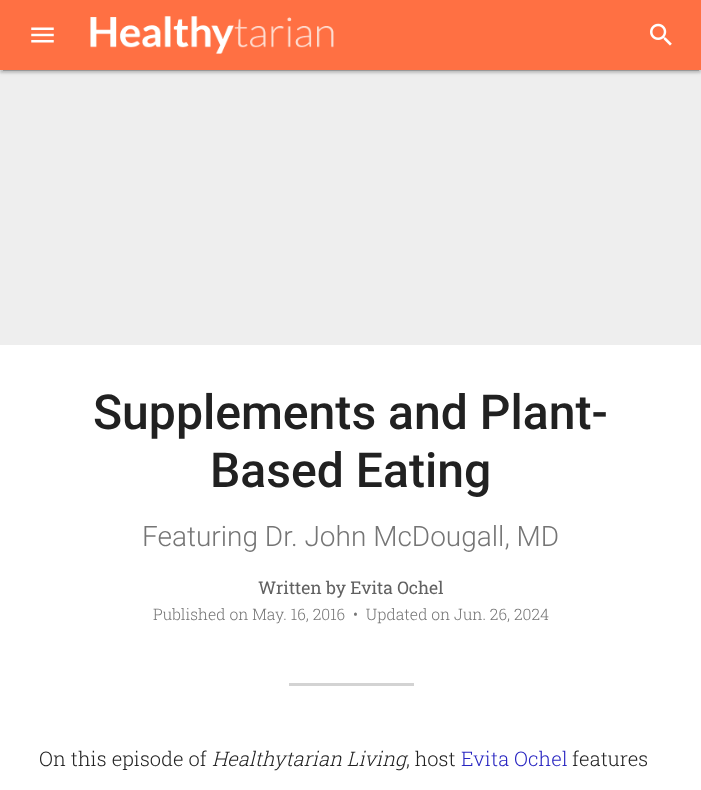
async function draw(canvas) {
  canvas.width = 701;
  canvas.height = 790;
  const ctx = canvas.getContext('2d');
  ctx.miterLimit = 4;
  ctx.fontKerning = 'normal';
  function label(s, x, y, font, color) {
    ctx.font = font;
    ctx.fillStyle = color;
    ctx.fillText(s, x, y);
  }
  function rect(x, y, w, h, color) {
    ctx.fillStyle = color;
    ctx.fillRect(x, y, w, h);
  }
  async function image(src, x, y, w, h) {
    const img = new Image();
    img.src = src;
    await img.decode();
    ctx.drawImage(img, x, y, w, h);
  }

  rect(0, 0, 701, 790, '#fff');
  rect(0, 70, 701, 275, '#eee');
  ctx.fillStyle = '#0000001f';
  ctx.filter = 'blur(3px)';
  ctx.beginPath();
  ctx.rect(0, 1, 701, 70);
  ctx.fill();
  ctx.filter = 'none';
  ctx.fillStyle = '#00000033';
  ctx.filter = 'blur(0.5px)';
  ctx.beginPath();
  ctx.rect(3, 6, 696, 65);
  ctx.fill();
  ctx.filter = 'none';
  ctx.fillStyle = '#00000024';
  ctx.filter = 'blur(1px)';
  ctx.beginPath();
  ctx.rect(0, 3, 701, 70);
  ctx.fill();
  ctx.filter = 'none';
  rect(0, 0, 701, 70, '#ff7043');
  await image('assets/img1.png', 31, 27, 23, 16);
  await image('assets/img2.png', 90, 16, 244, 38);
  await image('assets/img3.png', 650, 23, 22, 23);
  label('Supplements and Plant-', 93, 429, '500 48.1px Roboto', '#212121');
  label('Based Eating', 210, 487, '500 48.1px Roboto', '#212121');
  label('Featuring Dr. John McDougall, MD', 142, 546, '300 28px Roboto', '#757575');
  label('Written by Evita Ochel', 258, 594, '17.5px Roboto Slab', '#616161');
  label('Published on May. 16, 2016', 153, 620, '300 15.75px Roboto Slab', '#757575');
  label('•  Updated on Jun. 26, 2024', 353, 620, '300 15.75px Roboto Slab', '#757575');
  rect(289, 683, 125, 3, '#d3d3d3');
  label('On this episode of', 39, 766, '300 20.1px Roboto Slab', '#212121');
  label('Healthytarian Living', 212, 766, 'italic 300 20.1px Roboto Slab', '#212121');
  label(', host', 406, 766, '300 20.1px Roboto Slab', '#212121');
  label('Evita Ochel', 461, 766, '300 20.1px Roboto Slab', '#2825c1');
  label('features', 572, 766, '300 20.1px Roboto Slab', '#212121');
}

draw(document.querySelector('canvas'));
